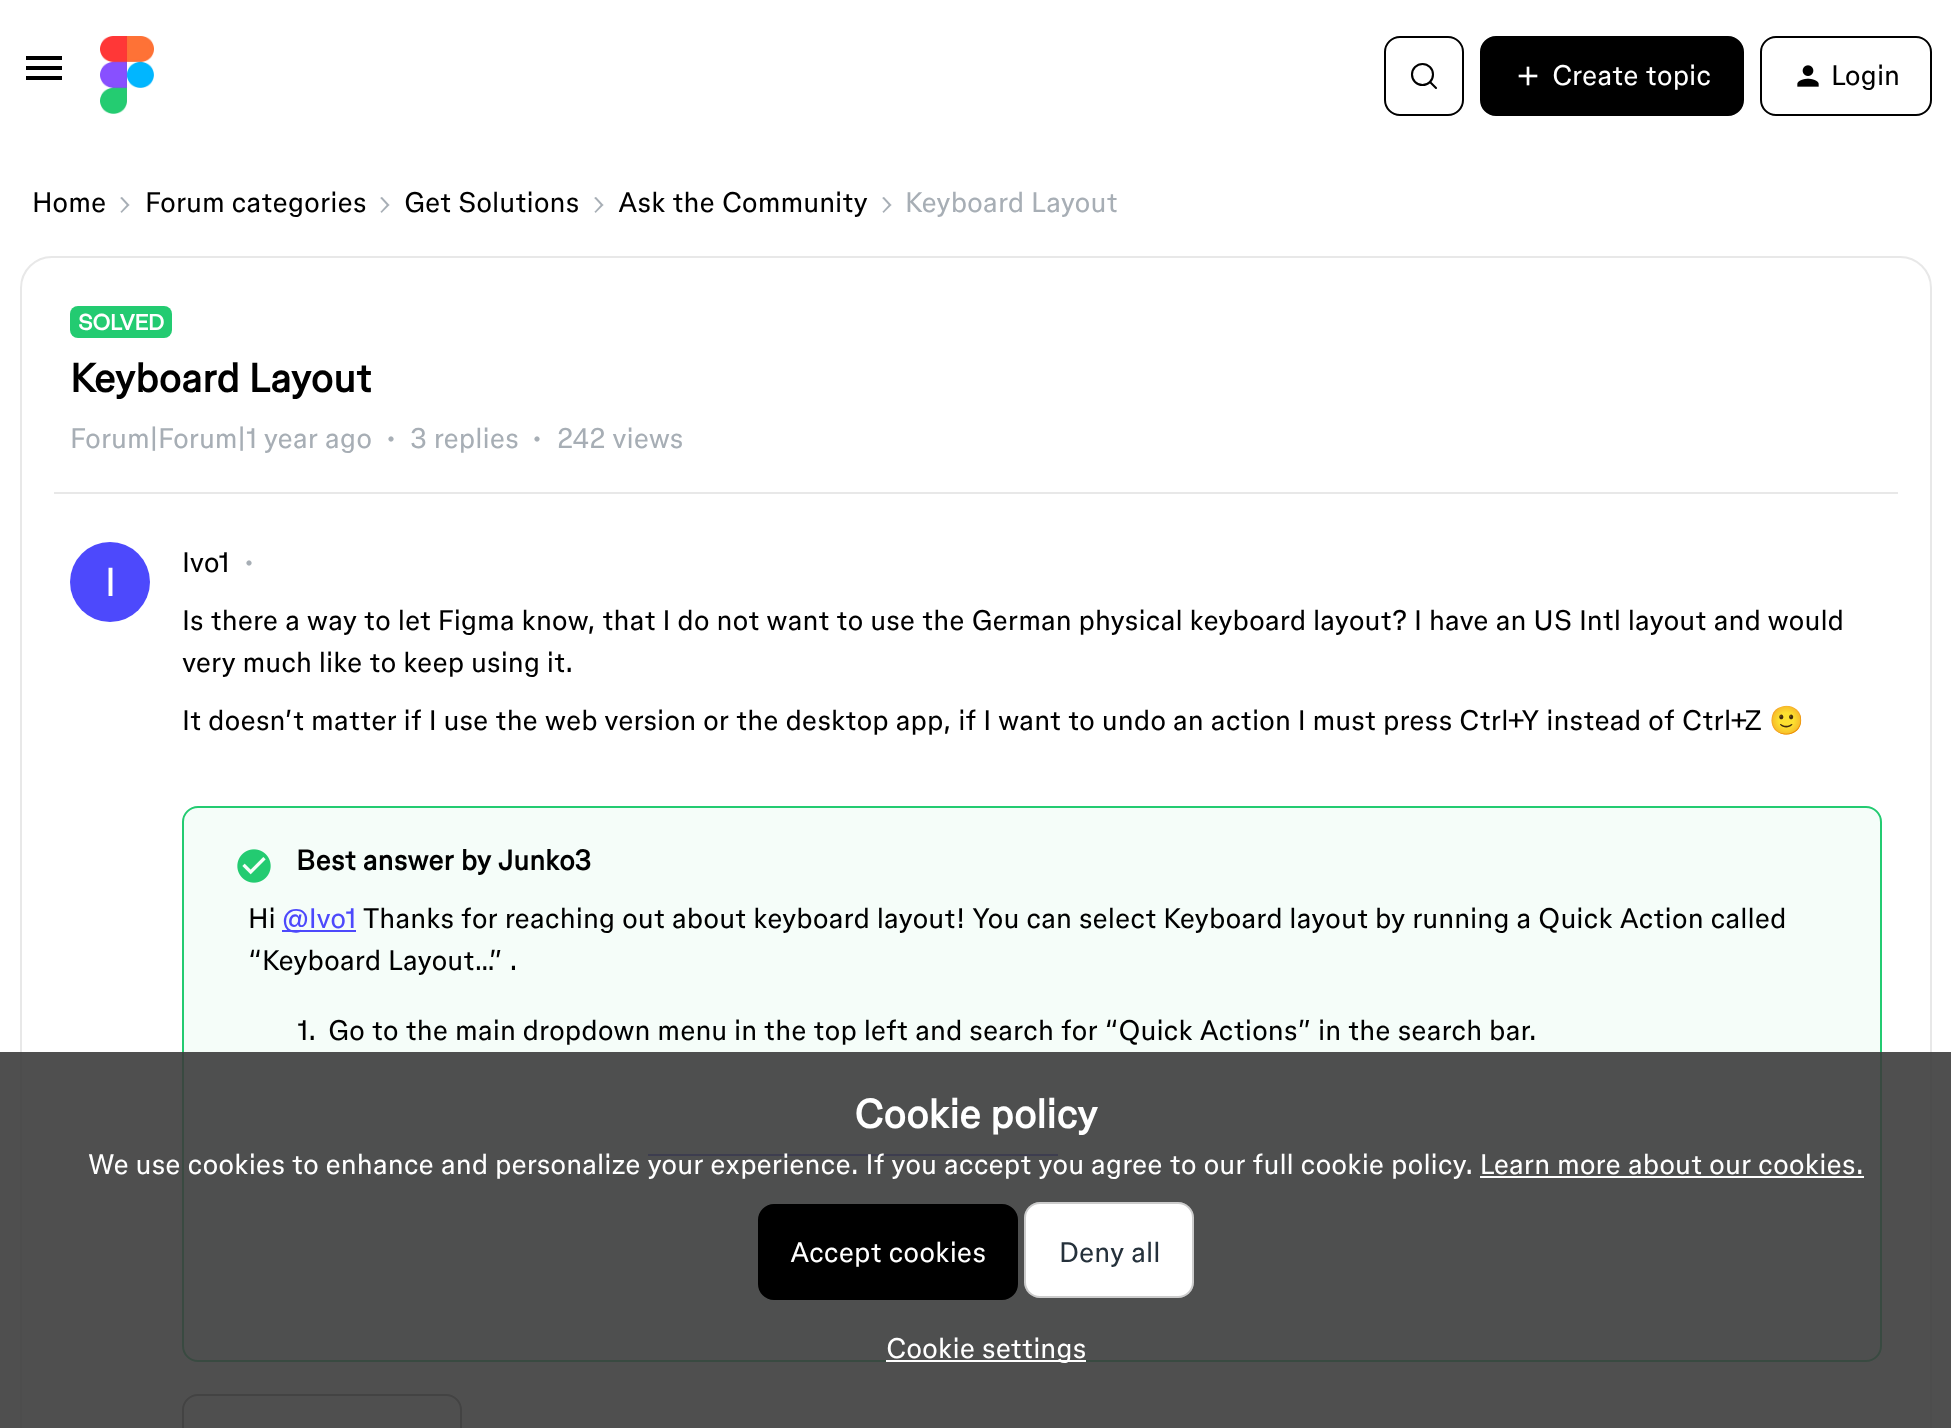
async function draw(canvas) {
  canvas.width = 1951;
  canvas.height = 1428;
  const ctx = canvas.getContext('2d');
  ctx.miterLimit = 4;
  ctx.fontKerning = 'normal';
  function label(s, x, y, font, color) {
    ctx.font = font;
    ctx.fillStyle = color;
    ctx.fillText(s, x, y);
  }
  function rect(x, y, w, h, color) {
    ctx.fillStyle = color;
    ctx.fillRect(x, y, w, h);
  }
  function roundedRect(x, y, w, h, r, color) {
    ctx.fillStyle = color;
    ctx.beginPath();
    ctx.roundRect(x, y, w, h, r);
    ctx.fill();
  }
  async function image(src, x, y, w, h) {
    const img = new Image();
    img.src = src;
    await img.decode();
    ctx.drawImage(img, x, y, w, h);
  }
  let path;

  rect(0, 0, 1951, 1428, '#fff');
  ctx.fillStyle = '#000';
  path = new Path2D('M26 80H62V76H26ZM26 70H62V66H26ZM26 56V60H62V56Z');
  ctx.fill(path);
  await image('assets/img1.png', 100, 36, 54, 78);
  ctx.beginPath();
  ctx.roundRect(1385, 37, 78, 78, 15);
  ctx.strokeStyle = '#000';
  ctx.lineWidth = 2;
  ctx.stroke();
  ctx.beginPath();
  ctx.arc(1422.5, 74.5, 10.5, 0, 2 * Math.PI);
  ctx.lineWidth = 2.1;
  ctx.stroke();
  path = new Path2D('M1430 82L1436 88');
  ctx.lineCap = 'round';
  ctx.stroke(path);
  ctx.beginPath();
  ctx.roundRect(1481, 37, 262, 78, 15);
  ctx.fill();
  ctx.lineWidth = 2;
  ctx.stroke();
  await image('assets/img2.png', 1518, 66, 20, 20);
  label('Create topic', 1552, 85, '28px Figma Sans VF', '#fff');
  ctx.beginPath();
  ctx.roundRect(1761, 37, 170, 78, 15);
  ctx.stroke();
  await image('assets/img3.png', 1797, 65, 22, 22);
  label('Login', 1831, 85, '28px Figma Sans VF', '#000');
  label('Home', 32, 212, '28px Figma Sans VF', '#000');
  await image('assets/img4.png', 120, 197, 10, 16);
  label('Forum categories', 145, 212, '28px Figma Sans VF', '#000');
  await image('assets/img4.png', 380, 197, 10, 16);
  label('Get Solutions', 404, 212, '28px Figma Sans VF', '#000');
  await image('assets/img4.png', 594, 197, 10, 16);
  label('Ask the Community', 618, 212, '28px Figma Sans VF', '#000');
  await image('assets/img4.png', 882, 197, 10, 16);
  label('Keyboard Layout', 905, 212, '28px Figma Sans VF', '#a7aeb5');
  ctx.beginPath();
  ctx.roundRect(21, 257, 1910, 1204, 31);
  ctx.strokeStyle = '#e8e8e8';
  ctx.stroke();
  roundedRect(70, 306, 102, 32, 8, '#23cb71');
  label('SOLVED', 78, 330, 'bold 22px Figma Sans VF', '#fff');
  label('Keyboard Layout', 70, 392, 'bold 40px "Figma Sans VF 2"', '#000');
  label('Forum|Forum|1 year ago', 70, 448, '28px Figma Sans VF', '#a7aeb5');
  await image('assets/img5.png', 388, 436, 6, 6);
  label('3 replies', 410, 448, '28px Figma Sans VF', '#a7aeb5');
  await image('assets/img5.png', 534, 436, 6, 6);
  label('242 views', 557, 448, '28px Figma Sans VF', '#a7aeb5');
  rect(54, 492, 1844, 2, '#e8e8e8');
  label('Ivo1', 182, 572, '28px Figma Sans VF', '#000');
  await image('assets/img5.png', 246, 560, 6, 6);
  ctx.fillStyle = '#4d49fc';
  ctx.beginPath();
  ctx.arc(110, 582, 40, 0, 2 * Math.PI);
  ctx.fill();
  label('I', 105, 596, '40px "Figma Sans VF 2"', '#fff');
  label('Is there a way to let Figma know, that I do not want to use the German physical keyboard layout? I have an US Intl layout and would', 182, 630, '28px Figma Sans VF', '#000');
  label('very much like to keep using it.', 182, 672, '28px Figma Sans VF', '#000');
  label('It doesn’t matter if I use the web version or the desktop app, if I want to undo an action I must press Ctrl+Y instead of Ctrl+Z', 182, 730, '28px Figma Sans VF', '#000');
  label('🙂', 1769, 730, '28px Noto Color Emoji', '#000');
  ctx.fillStyle = '#f5fdf9';
  ctx.beginPath();
  ctx.roundRect(183, 807, 1698, 554, 15);
  ctx.fill();
  ctx.strokeStyle = '#23cb71';
  ctx.stroke();
  await image('assets/img6.png', 237, 849, 34, 34);
  label('Best answer by Junko3', 296, 870, 'bold 28px "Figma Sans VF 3"', '#000');
  label('Hi', 248, 928, '28px Figma Sans VF', '#000');
  rect(282, 930, 74, 2, '#4d49fc');
  label('@Ivo1', 282, 928, '28px Figma Sans VF', '#4d49fc');
  label('Thanks for reaching out about keyboard layout! You can select Keyboard layout by running a Quick Action called', 363, 928, '28px Figma Sans VF', '#000');
  label('“Keyboard Layout…” .', 248, 970, '28px Figma Sans VF', '#000');
  label('1.', 297, 1040, '28px Figma Sans VF', '#000');
  label('Go to the main dropdown menu in the top left and search for “Quick Actions” in the search bar.', 328, 1040, '28px Figma Sans VF', '#000');
  rect(648, 1154, 410, 2, '#4d49fc');
  ctx.beginPath();
  ctx.roundRect(183, 1395, 278, 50, 15);
  ctx.strokeStyle = '#808080';
  ctx.stroke();
  rect(0, 1052, 1951, 376, '#3c3c3ce6');
  label('Cookie policy', 854, 1128, 'bold 40px "Figma Sans VF 2"', '#fff');
  label('We use cookies to enhance and personalize your experience. If you accept you agree to our full cookie policy. Learn more about our cookies.', 88, 1174, '28px Figma Sans VF', '#fff');
  rect(1480, 1176, 384, 2, '#fff');
  ctx.fillStyle = '#000';
  ctx.beginPath();
  ctx.roundRect(759, 1205, 258, 94, 15);
  ctx.fill();
  ctx.strokeStyle = '#000';
  ctx.stroke();
  label('Accept cookies', 790, 1262, '28px Figma Sans VF', '#fff');
  roundedRect(1024, 1202, 170, 96, 16, '#fff');
  ctx.beginPath();
  ctx.roundRect(1025, 1203, 168, 94, 15);
  ctx.strokeStyle = '#00000033';
  ctx.stroke();
  label('Deny all', 1059, 1262, '28px Figma Sans VF', '#25313b');
  rect(886, 1360, 200, 2, '#fff');
  label('Cookie settings', 886, 1358, '28px Figma Sans VF', '#fff');
}

draw(document.querySelector('canvas'));
